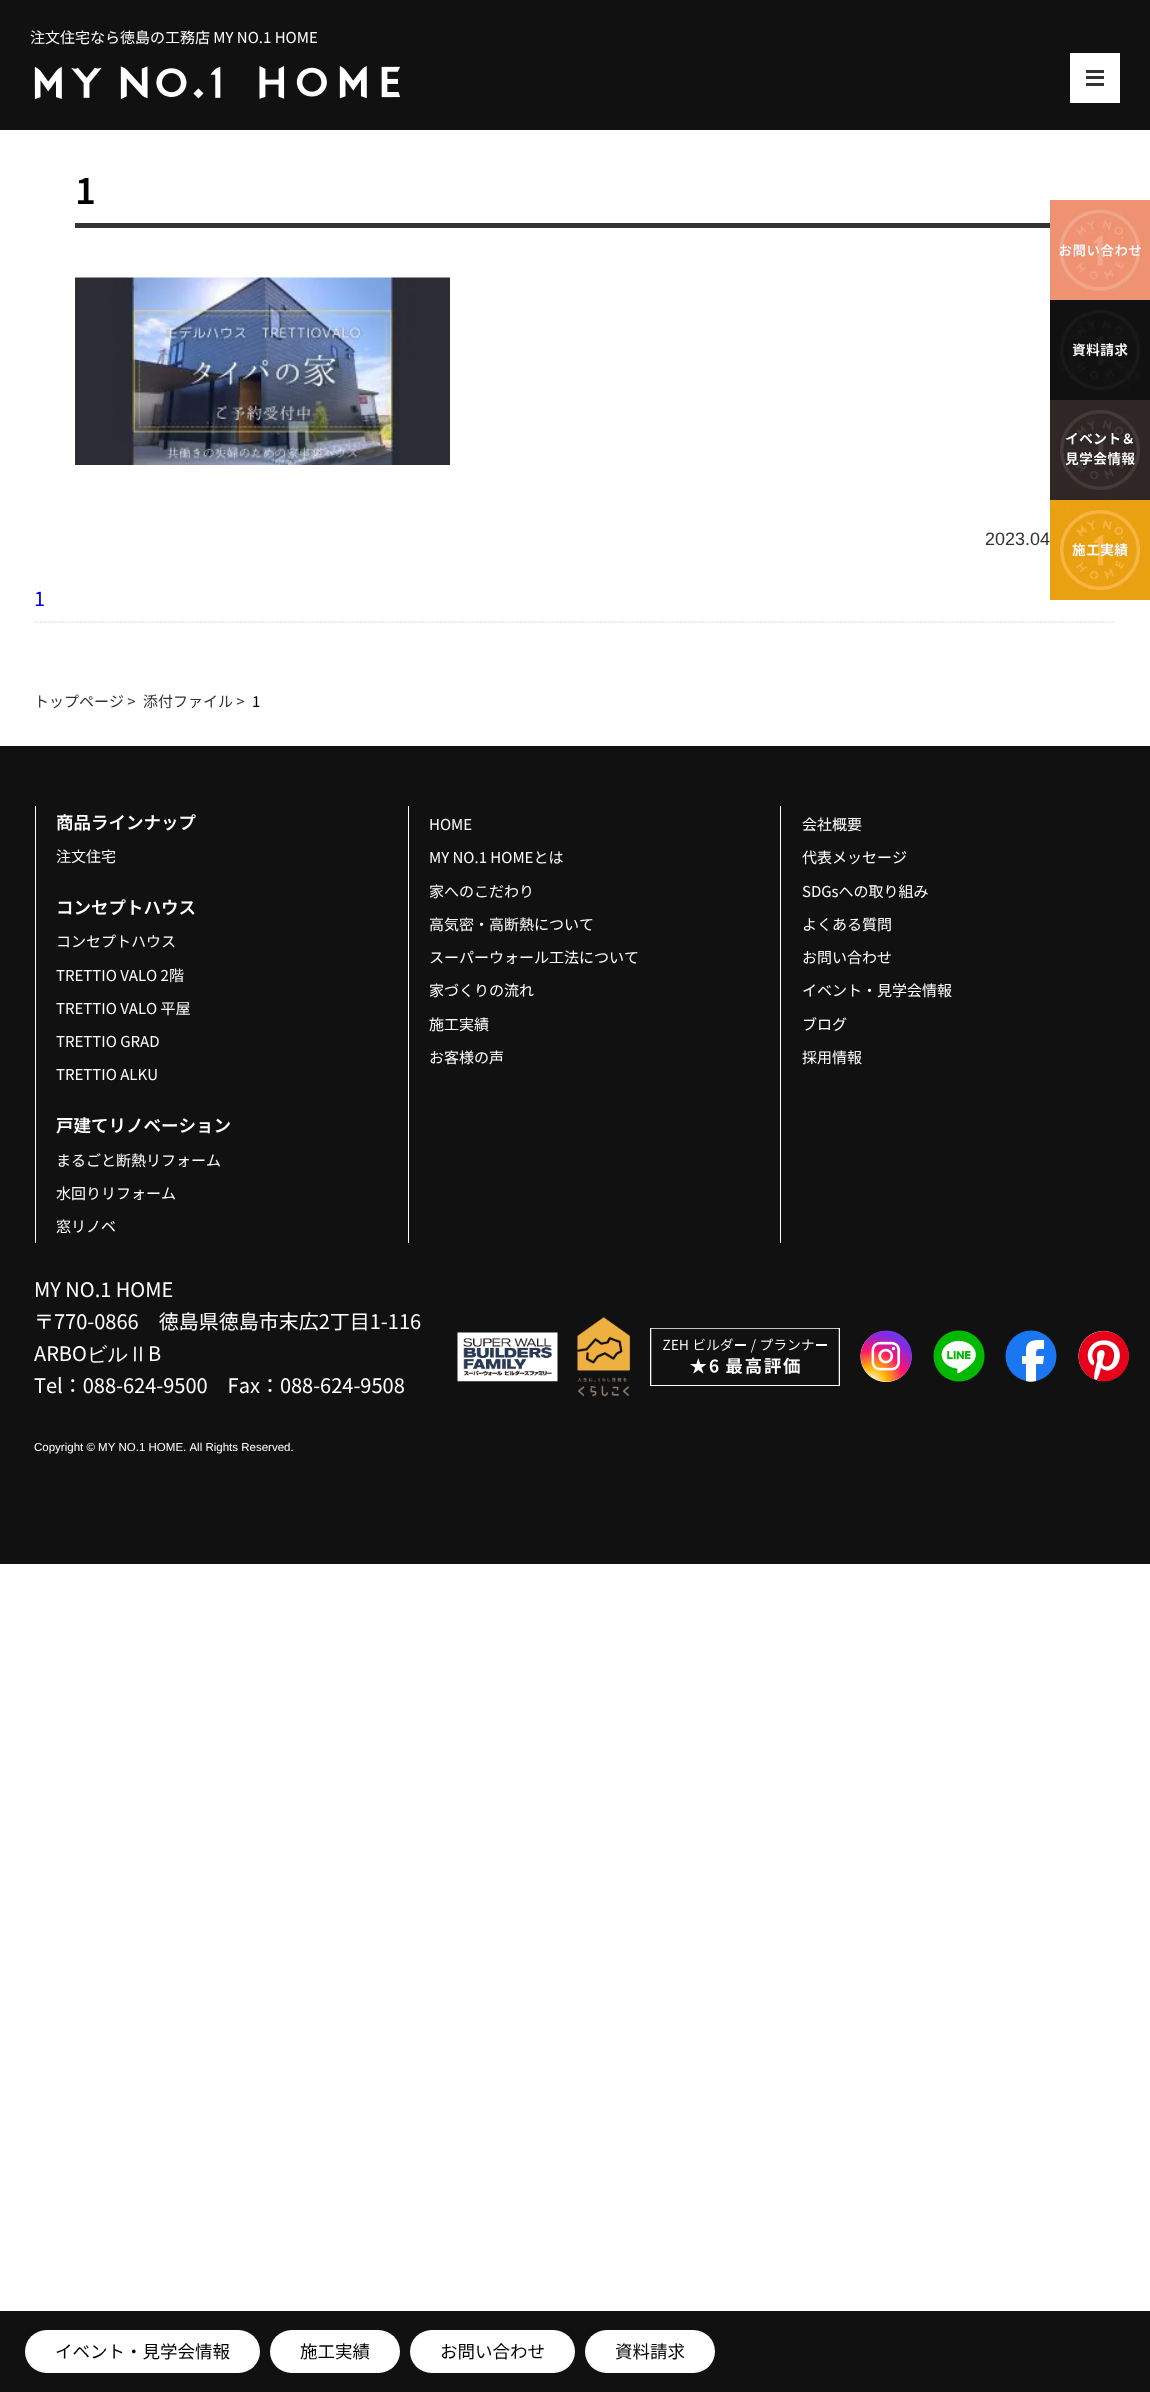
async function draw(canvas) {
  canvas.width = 1150;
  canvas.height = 2392;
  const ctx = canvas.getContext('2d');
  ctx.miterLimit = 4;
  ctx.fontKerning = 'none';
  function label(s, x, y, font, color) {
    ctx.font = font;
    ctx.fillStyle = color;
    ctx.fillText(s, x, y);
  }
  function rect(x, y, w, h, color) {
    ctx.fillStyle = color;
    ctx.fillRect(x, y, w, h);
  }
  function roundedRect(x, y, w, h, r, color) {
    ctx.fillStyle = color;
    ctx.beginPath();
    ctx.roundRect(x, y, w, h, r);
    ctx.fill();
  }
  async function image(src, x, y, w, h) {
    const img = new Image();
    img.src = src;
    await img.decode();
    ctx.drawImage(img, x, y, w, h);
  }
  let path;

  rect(0, 0, 1150, 2392, '#fff');
  rect(0, 0, 1150, 130, '#111');
  label('注文住宅なら徳島の工務店 MY NO.1 HOME', 30, 43, '15px Noto Sans JP', '#fff');
  await image('assets/img1.png', 34, 66, 367, 33);
  rect(1070, 53, 50, 50, '#fff');
  rect(1086, 76, 18, 3, '#333');
  rect(1086, 70, 18, 3, '#333');
  rect(1086, 83, 18, 3, '#333');
  rect(75, 223, 975, 5, '#333');
  label('1', 75, 204, '600 36px Noto Sans JP', '#000');
  await image('assets/img2.png', 75, 277, 375, 188);
  label('2023.04', 985, 545, '18px Liberation Sans', '#333');
  path = new Path2D('M35 622H1115');
  ctx.strokeStyle = '#ccc';
  ctx.lineWidth = 1.2;
  ctx.setLineDash([1.25, 1.25]);
  ctx.stroke(path);
  label('1', 34, 606, '20px Noto Sans JP', '#00e');
  await image('assets/img3.png', 1050, 200, 100, 100);
  await image('assets/img4.png', 1050, 300, 100, 100);
  await image('assets/img5.png', 1050, 400, 100, 100);
  await image('assets/img6.png', 1050, 500, 100, 100);
  label('トップページ >', 34, 707, '15px Noto Sans JP', '#333');
  label('添付ファイル >', 143, 707, '15px Noto Sans JP', '#333');
  label('1', 252, 707, '15px Noto Sans JP', '#000');
  rect(0, 746, 1150, 818, '#111');
  rect(35, 806, 1, 437, '#fff');
  label('商品ラインナップ', 56, 829, '600 17.5px Noto Sans JP', '#fff');
  label('注文住宅', 56, 862, '15px Noto Sans JP', '#fff');
  label('コンセプトハウス', 56, 914, '600 17.5px Noto Sans JP', '#fff');
  label('コンセプトハウス', 56, 947, '15px Noto Sans JP', '#fff');
  label('TRETTIO VALO 2階', 56, 981, '15px Noto Sans JP', '#fff');
  label('TRETTIO VALO 平屋', 56, 1014, '15px Noto Sans JP', '#fff');
  label('TRETTIO GRAD', 56, 1047, '15px Noto Sans JP', '#fff');
  label('TRETTIO ALKU', 56, 1080, '15px Noto Sans JP', '#fff');
  label('戸建てリノベーション', 56, 1132, '600 17.5px Noto Sans JP', '#fff');
  label('まるごと断熱リフォーム', 56, 1166, '15px Noto Sans JP', '#fff');
  label('水回りリフォーム', 56, 1199, '15px Noto Sans JP', '#fff');
  label('窓リノベ', 56, 1232, '15px Noto Sans JP', '#fff');
  rect(408, 806, 1, 437, '#fff');
  label('HOME', 429, 830, '15px Noto Sans JP', '#fff');
  label('MY NO.1 HOMEとは', 429, 863, '15px Noto Sans JP', '#fff');
  label('家へのこだわり', 429, 897, '15px Noto Sans JP', '#fff');
  label('高気密・高断熱について', 429, 930, '15px Noto Sans JP', '#fff');
  label('スーパーウォール工法について', 429, 963, '15px Noto Sans JP', '#fff');
  label('家づくりの流れ', 429, 996, '15px Noto Sans JP', '#fff');
  label('施工実績', 429, 1030, '15px Noto Sans JP', '#fff');
  label('お客様の声', 429, 1063, '15px Noto Sans JP', '#fff');
  rect(780, 806, 1, 437, '#fff');
  label('会社概要', 802, 830, '15px Noto Sans JP', '#fff');
  label('代表メッセージ', 802, 863, '15px Noto Sans JP', '#fff');
  label('SDGsへの取り組み', 802, 897, '15px Noto Sans JP', '#fff');
  label('よくある質問', 802, 930, '15px Noto Sans JP', '#fff');
  label('お問い合わせ', 802, 963, '15px Noto Sans JP', '#fff');
  label('イベント・見学会情報', 802, 996, '15px Noto Sans JP', '#fff');
  label('ブログ', 802, 1030, '15px Noto Sans JP', '#fff');
  label('採用情報', 802, 1063, '15px Noto Sans JP', '#fff');
  label('MY NO.1 HOME', 34, 1297, '20px Noto Sans JP', '#fff');
  label('〒770-0866　徳島県徳島市末広2丁目1-116', 34, 1329, '20px Noto Sans JP', '#fff');
  label('ARBO', 34, 1361, '20px Noto Sans JP', '#fff');
  label('ビルⅡ', 87, 1361, '500 20px WenQuanYi Zen Hei', '#fff');
  label('B', 148, 1361, '20px Noto Sans JP', '#fff');
  label('Tel：088-624-9500　Fax：088-624-9508', 34, 1393, '20px Noto Sans JP', '#fff');
  await image('assets/img7.png', 457, 1332, 101, 50);
  await image('assets/img8.png', 577, 1317, 53, 80);
  await image('assets/img9.png', 650, 1328, 190, 58);
  await image('assets/img10.png', 860, 1330, 52, 52);
  await image('assets/img11.png', 933, 1330, 52, 52);
  ctx.fillStyle = '#1a77f1';
  ctx.beginPath();
  ctx.arc(1031, 1356, 25.5, 0, 2 * Math.PI);
  ctx.fill();
  ctx.fillStyle = '#fff';
  path = new Path2D('M1026 1350C1026 1339 1036 1340 1044 1340V1349C1037 1349 1036 1348 1036 1356H1044L1043 1364H1036V1381C1033 1382 1029 1382 1026 1381V1364H1022V1356H1026Z');
  ctx.fill(path);
  await image('assets/img12.png', 1078, 1331, 51, 51);
  label('Copyright © MY NO.1 HOME. All Rights Reserved.', 34, 1451, '11.5px Liberation Sans', '#fff');
  rect(0, 2311, 1150, 81, '#111');
  roundedRect(25, 2330, 235, 43, 21.5, '#fff');
  label('イベント・見学会情報', 55, 2358, '17.5px Noto Sans JP', '#000');
  roundedRect(270, 2330, 130, 43, 21.5, '#fff');
  label('施工実績', 300, 2358, '17.5px Noto Sans JP', '#000');
  roundedRect(410, 2330, 165, 43, 21.5, '#fff');
  label('お問い合わせ', 440, 2358, '17.5px Noto Sans JP', '#000');
  roundedRect(585, 2330, 130, 43, 21.5, '#fff');
  label('資料請求', 615, 2358, '17.5px Noto Sans JP', '#000');
}

draw(document.querySelector('canvas'));
